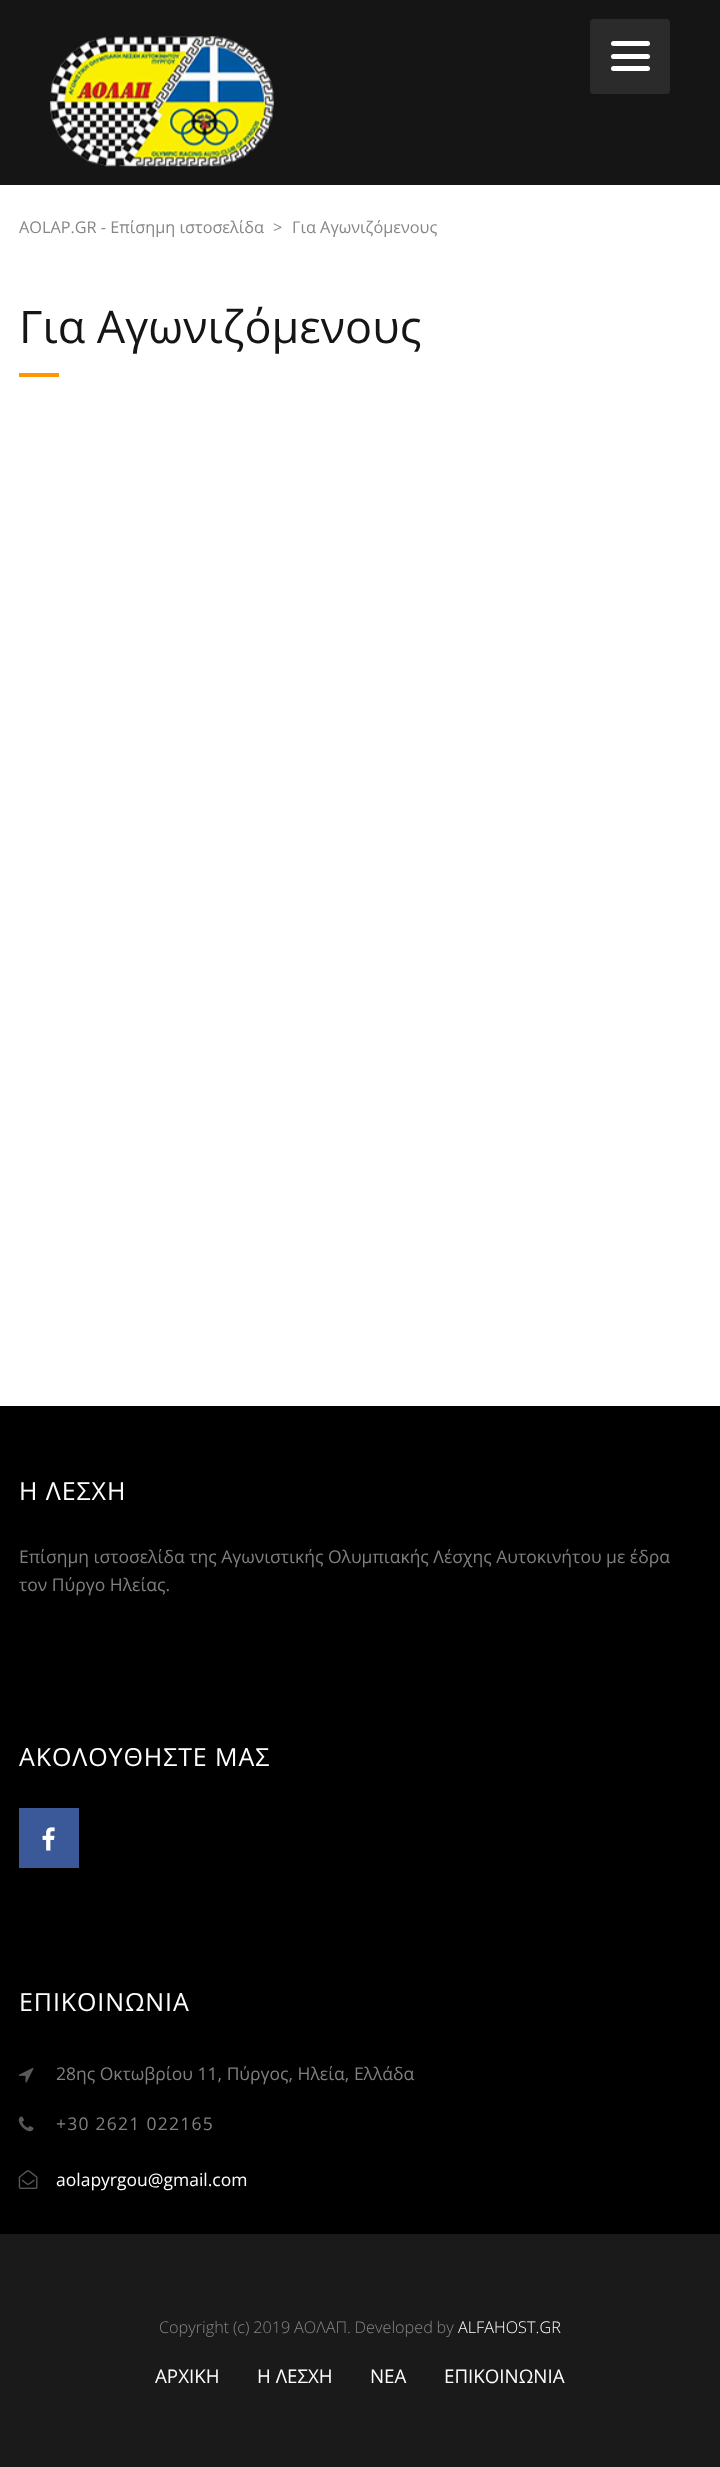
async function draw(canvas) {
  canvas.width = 720;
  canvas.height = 2467;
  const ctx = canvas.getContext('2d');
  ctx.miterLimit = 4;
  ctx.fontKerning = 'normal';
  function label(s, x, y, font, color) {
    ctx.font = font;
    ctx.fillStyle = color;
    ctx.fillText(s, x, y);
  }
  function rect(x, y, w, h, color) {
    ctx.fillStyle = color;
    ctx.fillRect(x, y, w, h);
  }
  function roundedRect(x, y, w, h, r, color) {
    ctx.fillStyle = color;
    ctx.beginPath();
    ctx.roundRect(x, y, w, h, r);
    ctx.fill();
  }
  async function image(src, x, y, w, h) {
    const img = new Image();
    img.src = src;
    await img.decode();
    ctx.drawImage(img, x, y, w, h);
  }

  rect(0, 0, 720, 2467, '#fff');
  rect(0, 0, 720, 185, '#151515');
  await image('assets/img1.png', 50, 36, 224, 131);
  roundedRect(590, 19, 80, 75, 4, '#2b2b2c');
  roundedRect(611, 41, 39, 5, 2.5, '#fff');
  roundedRect(611, 54, 39, 5, 2.5, '#fff');
  roundedRect(611, 66, 39, 5, 2.5, '#fff');
  label('AOLAP.GR - Επίσημη ιστοσελίδα', 19, 233, '16.25px Open Sans', '#868686');
  label('>', 273, 233, '16.25px Open Sans', '#868686');
  label('Για Αγωνιζόμενους', 292, 233, '16.25px Open Sans', '#868686');
  label('Για Αγωνιζόμενους', 19, 343, '45px Open Sans', '#151515');
  rect(19, 373, 40, 4, '#ff9500');
  rect(0, 1406, 720, 828, '#000');
  ctx.letterSpacing = '0.9px';
  label('Η ΛΕΣΧΗ', 19, 1500, '25px Open Sans', '#fff');
  ctx.letterSpacing = '0px';
  label('Επίσημη ιστοσελίδα της Αγωνιστικής Ολυμπιακής Λέσχης Αυτοκινήτου με έδρα', 19, 1563, '17.5px Open Sans', '#808080');
  label('τον Πύργο Ηλείας.', 19, 1591, '17.5px Open Sans', '#808080');
  ctx.letterSpacing = '0.9px';
  label('ΑΚΟΛΟΥΘΗΣΤΕ ΜΑΣ', 19, 1766, '25px Open Sans', '#fff');
  rect(19, 1808, 60, 60, '#3b5998');
  await image('assets/img2.png', 42, 1827, 13, 24);
  label('ΕΠΙΚΟΙΝΩΝΙΑ', 19, 2011, '25px Open Sans', '#fff');
  await image('assets/img3.png', 18, 2067, 16, 16);
  ctx.letterSpacing = '0px';
  label('28ης Οκτωβρίου 11, Πύργος, Ηλεία, Ελλάδα', 56, 2080, '17.5px Open Sans', '#808080');
  await image('assets/img4.png', 18, 2116, 16, 16);
  ctx.letterSpacing = '1.25px';
  label('+30 2621 022165', 56, 2130, '17.5px Open Sans', '#808080');
  await image('assets/img5.png', 18, 2170, 20, 19);
  ctx.letterSpacing = '0px';
  label('aolapyrgou@gmail.com', 56, 2186, '17.5px Open Sans', '#fff');
  rect(0, 2234, 720, 233, '#1a1a1a');
  ctx.wordSpacing = '-0.5px';
  label('Copyright (c) 2019 ΑΟΛΑΠ. Developed by', 159, 2333, '300 16.25px Open Sans', '#868686');
  ctx.wordSpacing = '0px';
  label('ALFAHOST.GR', 458, 2333, '300 16.25px Open Sans', '#fff');
  label('ΑΡΧΙΚΗ', 155, 2383, '18.75px Open Sans', '#fff');
  label('Η ΛΕΣΧΗ', 257, 2383, '18.75px Open Sans', '#fff');
  label('ΝΕΑ', 370, 2383, '18.75px Open Sans', '#fff');
  label('ΕΠΙΚΟΙΝΩΝΙΑ', 444, 2383, '18.75px Open Sans', '#fff');
}

draw(document.querySelector('canvas'));
